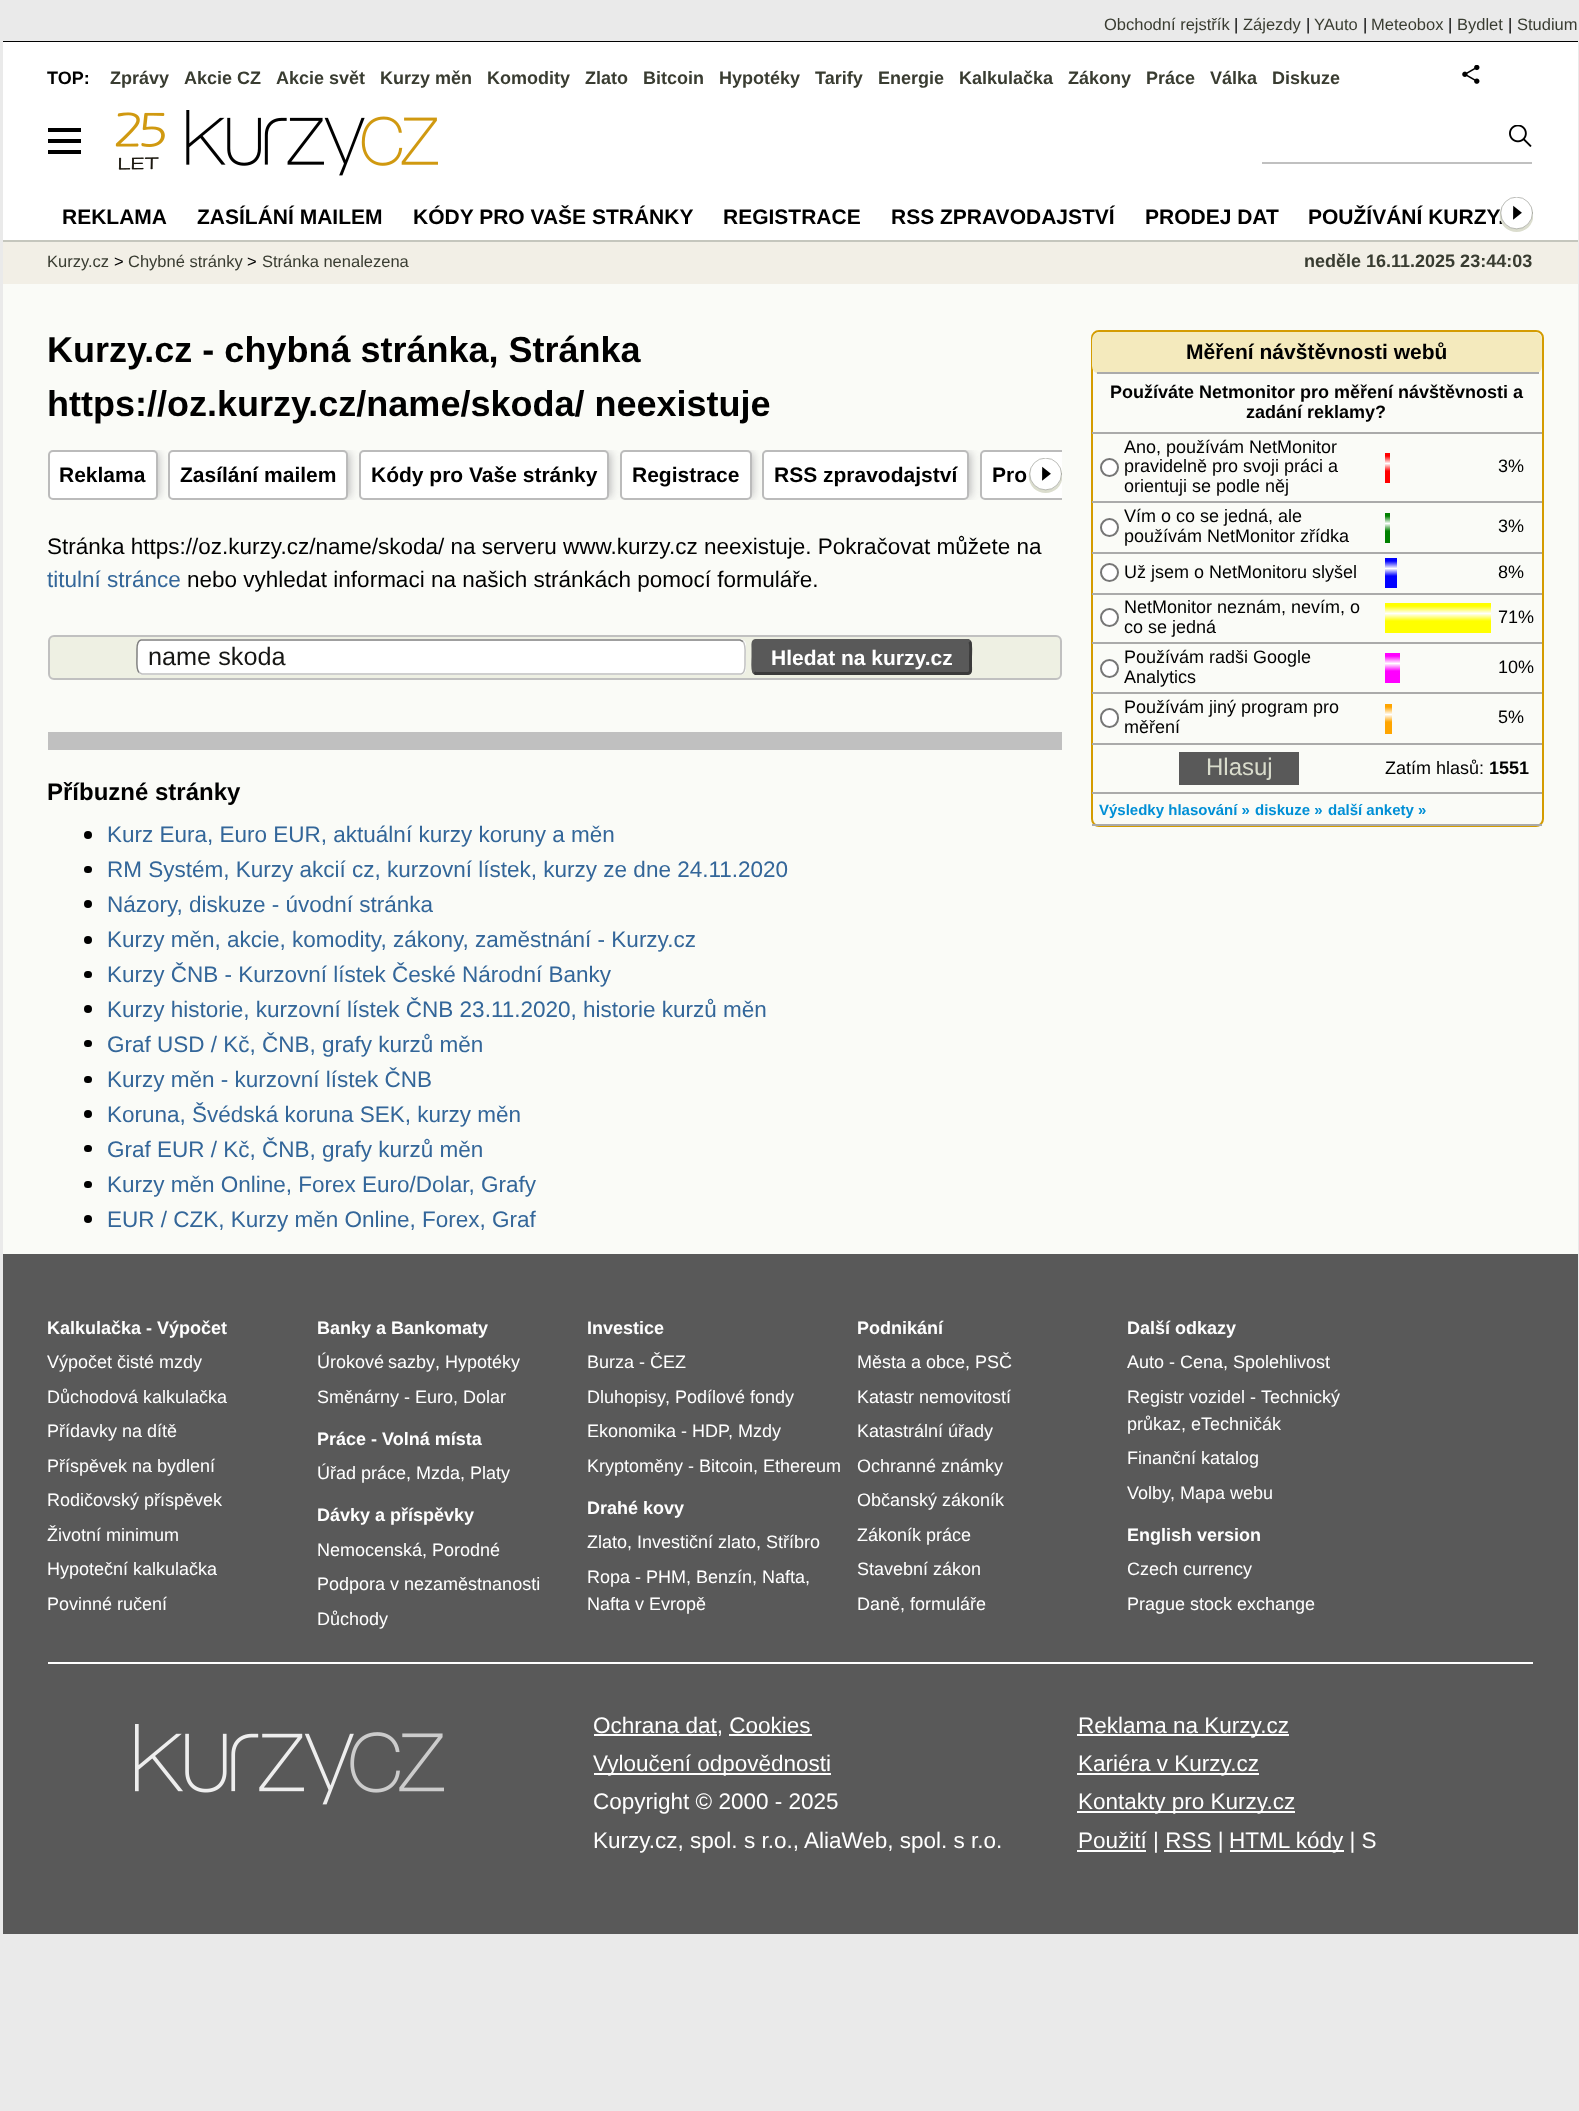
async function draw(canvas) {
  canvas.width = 1579;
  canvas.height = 2111;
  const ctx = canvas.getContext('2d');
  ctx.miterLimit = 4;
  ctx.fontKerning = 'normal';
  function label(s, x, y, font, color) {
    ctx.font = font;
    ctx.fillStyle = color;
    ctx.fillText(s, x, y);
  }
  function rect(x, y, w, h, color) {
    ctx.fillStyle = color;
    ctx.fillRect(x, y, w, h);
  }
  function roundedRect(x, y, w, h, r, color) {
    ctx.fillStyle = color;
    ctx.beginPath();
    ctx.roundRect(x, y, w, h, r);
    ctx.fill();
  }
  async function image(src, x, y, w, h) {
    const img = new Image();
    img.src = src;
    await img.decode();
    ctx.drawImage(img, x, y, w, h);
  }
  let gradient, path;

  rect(0, 0, 1579, 2111, '#eaeaea');
  rect(3, 284, 1575, 970, '#fafbf7');
  rect(3, 41, 1575, 1, '#000');
  label('Obchodní rejstřík', 1104, 30, '16.5px Liberation Sans', '#393c31');
  label('|', 1234, 30, '16.5px Liberation Sans', '#000');
  label('Zájezdy', 1243, 30, '16.5px Liberation Sans', '#393c31');
  label('|', 1306, 30, '16.5px Liberation Sans', '#000');
  label('YAuto', 1314, 30, '16.5px Liberation Sans', '#393c31');
  label('|', 1363, 30, '16.5px Liberation Sans', '#000');
  label('Meteobox', 1371, 30, '16.5px Liberation Sans', '#393c31');
  label('|', 1448, 30, '16.5px Liberation Sans', '#000');
  label('Bydlet', 1457, 30, '16.5px Liberation Sans', '#393c31');
  label('|', 1508, 30, '16.5px Liberation Sans', '#000');
  label('Studium', 1517, 30, '16.5px Liberation Sans', '#393c31');
  rect(3, 42, 1575, 198, '#fff');
  rect(48, 128, 33, 4, '#000');
  await image('assets/img1.png', 115, 110, 323, 66);
  rect(1262, 162, 270, 2, '#c0c0c0');
  await image('assets/img2.png', 1509, 125, 23, 22);
  rect(48, 139, 33, 4, '#000');
  rect(48, 150, 33, 4, '#000');
  label('TOP:', 47, 84, 'bold 18px Liberation Sans', '#000');
  label('Zprávy', 110, 84, 'bold 18px Liberation Sans', '#393c31');
  label('Akcie CZ', 184, 84, 'bold 18px Liberation Sans', '#393c31');
  label('Akcie svět', 276, 84, 'bold 18px Liberation Sans', '#393c31');
  label('Kurzy měn', 380, 84, 'bold 18px Liberation Sans', '#393c31');
  label('Komodity', 487, 84, 'bold 18px Liberation Sans', '#393c31');
  label('Zlato', 585, 84, 'bold 18px Liberation Sans', '#393c31');
  label('Bitcoin', 643, 84, 'bold 18px Liberation Sans', '#393c31');
  label('Hypotéky', 719, 84, 'bold 18px Liberation Sans', '#393c31');
  label('Tarify', 815, 84, 'bold 18px Liberation Sans', '#393c31');
  label('Energie', 878, 84, 'bold 18px Liberation Sans', '#393c31');
  label('Kalkulačka', 959, 84, 'bold 18px Liberation Sans', '#393c31');
  label('Zákony', 1068, 84, 'bold 18px Liberation Sans', '#393c31');
  label('Práce', 1146, 84, 'bold 18px Liberation Sans', '#393c31');
  label('Válka', 1210, 84, 'bold 18px Liberation Sans', '#393c31');
  label('Diskuze', 1272, 84, 'bold 18px Liberation Sans', '#393c31');
  await image('assets/img3.png', 1462, 65, 18, 19);
  rect(3, 242, 1575, 42, '#f2efe6');
  label('Kurzy.cz', 47, 267, '16.5px Liberation Sans', '#393c31');
  label('>', 114, 267, '16.5px Liberation Sans', '#000');
  label('Chybné stránky', 128, 267, '16.5px Liberation Sans', '#393c31');
  label('>', 247, 267, '16.5px Liberation Sans', '#000');
  label('Stránka nenalezena', 262, 267, '16.5px Liberation Sans', '#393c31');
  label('neděle 16.11.2025 23:44:03', 1304, 267, 'bold 18px Liberation Sans', '#393c31');
  label('Kurzy.cz - chybná stránka, Stránka', 47, 362, 'bold 36px Liberation Sans', '#000');
  label('https://oz.kurzy.cz/name/skoda/ neexistuje', 47, 416, 'bold 36px Liberation Sans', '#000');
  ctx.save();
  ctx.beginPath();
  ctx.rect(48, 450, 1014, 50);
  ctx.clip();
  ctx.fillStyle = '#bbb';
  ctx.filter = 'blur(4px)';
  ctx.beginPath();
  ctx.roundRect(56, 453, 103, 44, 1.5);
  ctx.fill();
  ctx.filter = 'none';
  ctx.restore();
  ctx.fillStyle = '#fff';
  ctx.beginPath();
  ctx.roundRect(49, 451, 108, 48, 4);
  ctx.fill();
  ctx.strokeStyle = '#bbb';
  ctx.lineWidth = 2;
  ctx.stroke();
  label('Reklama', 59, 482, 'bold 21px Liberation Sans', '#000');
  ctx.save();
  ctx.beginPath();
  ctx.rect(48, 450, 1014, 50);
  ctx.clip();
  ctx.fillStyle = '#bbb';
  ctx.filter = 'blur(4px)';
  ctx.beginPath();
  ctx.roundRect(176, 453, 174, 44, 1.5);
  ctx.fill();
  ctx.filter = 'none';
  ctx.restore();
  ctx.fillStyle = '#fff';
  ctx.beginPath();
  ctx.roundRect(169, 451, 178, 48, 4);
  ctx.fill();
  ctx.stroke();
  label('Zasílání mailem', 180, 482, 'bold 21px Liberation Sans', '#000');
  ctx.save();
  ctx.beginPath();
  ctx.rect(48, 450, 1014, 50);
  ctx.clip();
  ctx.fillStyle = '#bbb';
  ctx.filter = 'blur(4px)';
  ctx.beginPath();
  ctx.roundRect(366, 453, 245, 44, 1.5);
  ctx.fill();
  ctx.filter = 'none';
  ctx.restore();
  ctx.fillStyle = '#fff';
  ctx.beginPath();
  ctx.roundRect(360, 451, 248, 48, 4);
  ctx.fill();
  ctx.stroke();
  label('Kódy pro Vaše stránky', 371, 482, 'bold 21px Liberation Sans', '#000');
  ctx.save();
  ctx.beginPath();
  ctx.rect(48, 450, 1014, 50);
  ctx.clip();
  ctx.fillStyle = '#bbb';
  ctx.filter = 'blur(4px)';
  ctx.beginPath();
  ctx.roundRect(627, 453, 126, 44, 1.5);
  ctx.fill();
  ctx.filter = 'none';
  ctx.restore();
  ctx.fillStyle = '#fff';
  ctx.beginPath();
  ctx.roundRect(621, 451, 130, 48, 4);
  ctx.fill();
  ctx.stroke();
  label('Registrace', 632, 482, 'bold 21px Liberation Sans', '#000');
  ctx.save();
  ctx.beginPath();
  ctx.rect(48, 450, 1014, 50);
  ctx.clip();
  ctx.fillStyle = '#bbb';
  ctx.filter = 'blur(4px)';
  ctx.beginPath();
  ctx.roundRect(770, 453, 201, 44, 1.5);
  ctx.fill();
  ctx.filter = 'none';
  ctx.restore();
  ctx.fillStyle = '#fff';
  ctx.beginPath();
  ctx.roundRect(763, 451, 205, 48, 4);
  ctx.fill();
  ctx.stroke();
  label('RSS zpravodajství', 774, 482, 'bold 21px Liberation Sans', '#000');
  ctx.beginPath();
  ctx.roundRect(1092, 331, 451, 495, 7);
  ctx.strokeStyle = '#d49c01';
  ctx.stroke();
  rect(1092, 501, 450, 2, '#aaa');
  ctx.fillStyle = '#fff';
  ctx.beginPath();
  ctx.arc(1109.5, 467.5, 8.5, 0, 2 * Math.PI);
  ctx.fill();
  ctx.strokeStyle = '#767676';
  ctx.stroke();
  ctx.save();
  ctx.beginPath();
  ctx.rect(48, 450, 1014, 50);
  ctx.clip();
  ctx.fillStyle = '#bbb';
  ctx.filter = 'blur(4px)';
  ctx.beginPath();
  ctx.roundRect(987, 453, 122, 44, 1.5);
  ctx.fill();
  ctx.filter = 'none';
  ctx.restore();
  ctx.beginPath();
  ctx.roundRect(980, 450, 82, 50, [5, 0, 0, 5]);
  ctx.fill();
  ctx.save();
  ctx.beginPath();
  ctx.rect(48, 450, 1014, 50);
  ctx.clip();
  ctx.beginPath();
  ctx.roundRect(981, 451, 125, 48, 4);
  ctx.strokeStyle = '#bbb';
  ctx.stroke();
  ctx.restore();
  label('Pro', 992, 482, 'bold 21px Liberation Sans', '#000');
  await image('assets/img4.png', 1028, 458, 34, 35);
  label('Stránka https://oz.kurzy.cz/name/skoda/ na serveru www.kurzy.cz neexistuje. Pokračovat můžete na', 47, 554, '22.5px Liberation Sans', '#000');
  label('titulní stránce', 47, 587, '22.5px Liberation Sans', '#369');
  label('nebo vyhledat informaci na našich stránkách pomocí formuláře.', 187, 587, '22.5px Liberation Sans', '#000');
  ctx.fillStyle = '#eef0e3';
  ctx.beginPath();
  ctx.roundRect(49, 636, 1012, 43, 5);
  ctx.fill();
  ctx.strokeStyle = '#c0c0c0';
  ctx.stroke();
  roundedRect(137, 639, 609, 36, 6, '#fff');
  path = new Path2D('M743 641.5C746 644.5 745 653.5 745 657V665C745 668.5 745 673 741 674H142L139 672.5');
  ctx.lineWidth = 1.5;
  ctx.stroke(path);
  path = new Path2D('M139 672.5C136 669.5 137 660.5 137 657V649C137 645.5 137 641 141 640H740L743 641.5');
  ctx.strokeStyle = '#808080';
  ctx.stroke(path);
  label('name skoda', 148, 665, '25.25px Liberation Sans', '#161614');
  roundedRect(752, 639, 220, 36, 5, '#595959');
  path = new Path2D('M969.5 641.5C971.5 643.5 970.5 654 970.5 657V666C970.5 668.5 971.5 673.5 967.5 673.5H755.5L754 672.5');
  ctx.strokeStyle = '#3b3b3b';
  ctx.lineWidth = 3;
  ctx.stroke(path);
  path = new Path2D('M754 672.5C752 670.5 753 660 753 657V648C753 645.5 752 640.5 756 640.5H968L969.5 641.5');
  ctx.strokeStyle = '#595959';
  ctx.stroke(path);
  label('Hledat na kurzy.cz', 771, 665, 'bold 21px Liberation Sans', '#fff');
  rect(48, 732, 1014, 18, '#c0c0c0');
  label('Příbuzné stránky', 47, 800, 'bold 24px Liberation Sans', '#000');
  ctx.beginPath();
  ctx.arc(88, 835, 4, 0, 2 * Math.PI);
  ctx.fill();
  label('Kurz Eura, Euro EUR, aktuální kurzy koruny a měn', 107, 842, '22.5px Liberation Sans', '#369');
  roundedRect(84, 866, 8, 7, 3.5, '#000');
  label('RM Systém, Kurzy akcií cz, kurzovní lístek, kurzy ze dne 24.11.2020', 107, 877, '22.5px Liberation Sans', '#369');
  ctx.fillStyle = '#000';
  ctx.beginPath();
  ctx.arc(88, 904, 4, 0, 2 * Math.PI);
  ctx.fill();
  label('Názory, diskuze - úvodní stránka', 107, 912, '22.5px Liberation Sans', '#369');
  ctx.fillStyle = '#000';
  ctx.beginPath();
  ctx.arc(88, 940, 4, 0, 2 * Math.PI);
  ctx.fill();
  label('Kurzy měn, akcie, komodity, zákony, zaměstnání - Kurzy.cz', 107, 947, '22.5px Liberation Sans', '#369');
  roundedRect(84, 971, 8, 7, 3.5, '#000');
  label('Kurzy ČNB - Kurzovní lístek České Národní Banky', 107, 982, '22.5px Liberation Sans', '#369');
  ctx.fillStyle = '#000';
  ctx.beginPath();
  ctx.arc(88, 1009, 4, 0, 2 * Math.PI);
  ctx.fill();
  label('Kurzy historie, kurzovní lístek ČNB 23.11.2020, historie kurzů měn', 107, 1017, '22.5px Liberation Sans', '#369');
  roundedRect(84, 1040, 8, 7, 3.5, '#000');
  label('Graf USD / Kč, ČNB, grafy kurzů měn', 107, 1052, '22.5px Liberation Sans', '#369');
  roundedRect(84, 1076, 8, 7, 3.5, '#000');
  label('Kurzy měn - kurzovní lístek ČNB', 107, 1087, '22.5px Liberation Sans', '#369');
  ctx.fillStyle = '#000';
  ctx.beginPath();
  ctx.arc(88, 1114, 4, 0, 2 * Math.PI);
  ctx.fill();
  label('Koruna, Švédská koruna SEK, kurzy měn', 107, 1122, '22.5px Liberation Sans', '#369');
  roundedRect(84, 1145, 8, 7, 3.5, '#000');
  label('Graf EUR / Kč, ČNB, grafy kurzů měn', 107, 1157, '22.5px Liberation Sans', '#369');
  roundedRect(84, 1181, 8, 7, 3.5, '#000');
  label('Kurzy měn Online, Forex Euro/Dolar, Grafy', 107, 1192, '22.5px Liberation Sans', '#369');
  ctx.fillStyle = '#000';
  ctx.beginPath();
  ctx.arc(88, 1219, 4, 0, 2 * Math.PI);
  ctx.fill();
  ctx.save();
  ctx.beginPath();
  ctx.rect(108, 1203, 428, 33);
  ctx.clip();
  label('EUR / CZK, Kurzy měn Online, Forex, Graf', 107, 1227, '22.5px Liberation Sans', '#369');
  ctx.restore();
  roundedRect(1092, 332, 450, 42, 8, '#f4eabd');
  rect(1097, 372, 442, 2, '#aaa');
  label('Měření návštěvnosti webů', 1186, 359, 'bold 21px Liberation Sans', '#000');
  rect(1092, 432, 450, 2, '#aaa');
  label('Používáte Netmonitor pro měření návštěvnosti a', 1110, 398, 'bold 18px Liberation Sans', '#000');
  label('zadání reklamy?', 1246, 418, 'bold 18px Liberation Sans', '#000');
  label('Ano, používám NetMonitor', 1124, 453, '18px Liberation Sans', '#000');
  label('pravidelně pro svoji práci a', 1124, 472, '18px Liberation Sans', '#000');
  label('orientuji se podle něj', 1124, 492, '18px Liberation Sans', '#000');
  gradient = ctx.createLinearGradient(1387, 483, 1387, 453);
  gradient.addColorStop(0, '#f00');
  gradient.addColorStop(0.4, '#f00');
  gradient.addColorStop(0.65, '#fff');
  gradient.addColorStop(0.9, '#f00');
  gradient.addColorStop(1, '#f00');
  ctx.fillStyle = gradient;
  ctx.fillRect(1385, 453, 5, 30);
  label('3%', 1498, 472, '18px Liberation Sans', '#000');
  label('Vím o co se jedná, ale', 1124, 522, '18px Liberation Sans', '#000');
  label('používám NetMonitor zřídka', 1124, 542, '18px Liberation Sans', '#000');
  gradient = ctx.createLinearGradient(1387, 543, 1387, 513);
  gradient.addColorStop(0, '#008000');
  gradient.addColorStop(0.4, '#008000');
  gradient.addColorStop(0.65, '#fff');
  gradient.addColorStop(0.9, '#008000');
  gradient.addColorStop(1, '#008000');
  ctx.fillStyle = gradient;
  ctx.fillRect(1385, 513, 5, 30);
  rect(1092, 552, 450, 2, '#aaa');
  ctx.fillStyle = '#fff';
  ctx.beginPath();
  ctx.arc(1109.5, 527.5, 8.5, 0, 2 * Math.PI);
  ctx.fill();
  ctx.strokeStyle = '#767676';
  ctx.lineWidth = 2;
  ctx.stroke();
  label('3%', 1498, 532, '18px Liberation Sans', '#000');
  gradient = ctx.createLinearGradient(1391, 588, 1391, 558);
  gradient.addColorStop(0, '#00f');
  gradient.addColorStop(0.4, '#00f');
  gradient.addColorStop(0.65, '#fff');
  gradient.addColorStop(0.9, '#00f');
  gradient.addColorStop(1, '#00f');
  ctx.fillStyle = gradient;
  ctx.fillRect(1385, 558, 12, 30);
  rect(1092, 593, 450, 2, '#aaa');
  ctx.fillStyle = '#fff';
  ctx.beginPath();
  ctx.arc(1109.5, 572.5, 8.5, 0, 2 * Math.PI);
  ctx.fill();
  ctx.stroke();
  label('Už jsem o NetMonitoru slyšel', 1124, 578, '18px Liberation Sans', '#000');
  label('8%', 1498, 578, '18px Liberation Sans', '#000');
  label('NetMonitor neznám, nevím, o', 1124, 613, '18px Liberation Sans', '#000');
  label('co se jedná', 1124, 633, '18px Liberation Sans', '#000');
  gradient = ctx.createLinearGradient(1438, 633, 1438, 603);
  gradient.addColorStop(0, '#ff0');
  gradient.addColorStop(0.4, '#ff0');
  gradient.addColorStop(0.65, '#fff');
  gradient.addColorStop(0.9, '#ff0');
  gradient.addColorStop(1, '#ff0');
  ctx.fillStyle = gradient;
  ctx.fillRect(1385, 603, 106, 30);
  rect(1092, 642, 450, 2, '#aaa');
  ctx.fillStyle = '#fff';
  ctx.beginPath();
  ctx.arc(1109.5, 617.5, 8.5, 0, 2 * Math.PI);
  ctx.fill();
  ctx.stroke();
  label('71%', 1498, 623, '18px Liberation Sans', '#000');
  label('Používám radši Google', 1124, 663, '18px Liberation Sans', '#000');
  label('Analytics', 1124, 683, '18px Liberation Sans', '#000');
  gradient = ctx.createLinearGradient(1392, 683, 1392, 653);
  gradient.addColorStop(0, '#f0f');
  gradient.addColorStop(0.4, '#f0f');
  gradient.addColorStop(0.65, '#fff');
  gradient.addColorStop(0.9, '#f0f');
  gradient.addColorStop(1, '#f0f');
  ctx.fillStyle = gradient;
  ctx.fillRect(1385, 653, 15, 30);
  rect(1092, 692, 450, 2, '#aaa');
  ctx.fillStyle = '#fff';
  ctx.beginPath();
  ctx.arc(1109.5, 668.5, 8.5, 0, 2 * Math.PI);
  ctx.fill();
  ctx.stroke();
  label('10%', 1498, 673, '18px Liberation Sans', '#000');
  label('Používám jiný program pro', 1124, 713, '18px Liberation Sans', '#000');
  label('měření', 1124, 733, '18px Liberation Sans', '#000');
  gradient = ctx.createLinearGradient(1388, 734, 1388, 704);
  gradient.addColorStop(0, '#ffa500');
  gradient.addColorStop(0.4, '#ffa500');
  gradient.addColorStop(0.65, '#fff');
  gradient.addColorStop(0.9, '#ffa500');
  gradient.addColorStop(1, '#ffa500');
  ctx.fillStyle = gradient;
  ctx.fillRect(1385, 704, 7, 30);
  rect(1092, 743, 450, 2, '#aaa');
  ctx.fillStyle = '#fff';
  ctx.beginPath();
  ctx.roundRect(1101, 709, 17, 18, 8.5);
  ctx.fill();
  ctx.stroke();
  label('5%', 1498, 723, '18px Liberation Sans', '#000');
  rect(1092, 792, 450, 2, '#aaa');
  rect(1179, 752, 120, 33, '#595959');
  label('Hlasuj', 1206, 775, '24px Liberation Sans', '#d9dccc');
  label('Zatím hlasů:', 1385, 774, '18px Liberation Sans', '#000');
  label('1551', 1489, 774, 'bold 18px Liberation Sans', '#000');
  rect(1092, 824, 450, 2, '#aaa');
  label('Výsledky hlasování »', 1099, 815, 'bold 15px Liberation Sans', '#008fd6');
  label('diskuze »', 1255, 815, 'bold 15px Liberation Sans', '#008fd6');
  label('další ankety »', 1328, 815, 'bold 15px Liberation Sans', '#008fd6');
  rect(3, 240, 1575, 2, '#c5c6bd');
  label('REKLAMA', 62, 224, 'bold 21px Liberation Sans', '#000');
  label('ZASÍLÁNÍ MAILEM', 197, 224, 'bold 21px Liberation Sans', '#000');
  label('KÓDY PRO VAŠE STRÁNKY', 413, 224, 'bold 21px Liberation Sans', '#000');
  label('REGISTRACE', 723, 224, 'bold 21px Liberation Sans', '#000');
  label('RSS ZPRAVODAJSTVÍ', 891, 224, 'bold 21px Liberation Sans', '#000');
  label('PRODEJ DAT', 1145, 224, 'bold 21px Liberation Sans', '#000');
  label('POUŽÍVÁNÍ KURZY.', 1308, 224, 'bold 21px Liberation Sans', '#000');
  await image('assets/img5.png', 1499, 197, 34, 35);
  rect(3, 1254, 1575, 680, '#595959');
  label('Kalkulačka - Výpočet', 47, 1334, 'bold 18px Liberation Sans', '#fff');
  label('Výpočet čisté mzdy', 47, 1368, '18px Liberation Sans', '#fff');
  label('Důchodová kalkulačka', 47, 1403, '18px Liberation Sans', '#fff');
  label('Přídavky na dítě', 47, 1437, '18px Liberation Sans', '#fff');
  label('Příspěvek na bydlení', 47, 1472, '18px Liberation Sans', '#fff');
  label('Rodičovský příspěvek', 47, 1506, '18px Liberation Sans', '#fff');
  label('Životní minimum', 47, 1541, '18px Liberation Sans', '#fff');
  label('Hypoteční kalkulačka', 47, 1575, '18px Liberation Sans', '#fff');
  label('Povinné ručení', 47, 1610, '18px Liberation Sans', '#fff');
  label('Banky a Bankomaty', 317, 1334, 'bold 18px Liberation Sans', '#fff');
  ctx.wordSpacing = '-1px';
  label('Úrokové sazby', 317, 1368, '18px Liberation Sans', '#fff');
  ctx.wordSpacing = '0px';
  label(', Hypotéky', 435, 1368, '18px Liberation Sans', '#fff');
  label('Směnárny - Euro, Dolar', 317, 1403, '18px Liberation Sans', '#fff');
  label('Práce - Volná místa', 317, 1445, 'bold 18px Liberation Sans', '#fff');
  label('Úřad práce, Mzda, Platy', 317, 1479, '18px Liberation Sans', '#fff');
  label('Dávky a příspěvky', 317, 1521, 'bold 18px Liberation Sans', '#fff');
  label('Nemocenská, Porodné', 317, 1556, '18px Liberation Sans', '#fff');
  label('Podpora v nezaměstnanosti', 317, 1590, '18px Liberation Sans', '#fff');
  label('Důchody', 317, 1625, '18px Liberation Sans', '#fff');
  label('Investice', 587, 1334, 'bold 18px Liberation Sans', '#fff');
  label('Burza - ČEZ', 587, 1368, '18px Liberation Sans', '#fff');
  label('Dluhopisy', 587, 1403, '18px Liberation Sans', '#fff');
  label(', Podílové fondy', 665, 1403, '18px Liberation Sans', '#fff');
  label('Ekonomika - HDP', 587, 1437, '18px Liberation Sans', '#fff');
  label(', Mzdy', 728, 1437, '18px Liberation Sans', '#fff');
  label('Kryptoměny - Bitcoin, Ethereum', 587, 1472, '18px Liberation Sans', '#fff');
  label('Drahé kovy', 587, 1514, 'bold 18px Liberation Sans', '#fff');
  label('Zlato, Investiční zlato, Stříbro', 587, 1548, '18px Liberation Sans', '#fff');
  label('Ropa - PHM, Benzín, Nafta,', 587, 1583, '18px Liberation Sans', '#fff');
  label('Nafta v Evropě', 587, 1610, '18px Liberation Sans', '#fff');
  label('Podnikání', 857, 1334, 'bold 18px Liberation Sans', '#fff');
  label('Města a obce, PSČ', 857, 1368, '18px Liberation Sans', '#fff');
  label('Katastr nemovitostí', 857, 1403, '18px Liberation Sans', '#fff');
  label('Katastrální úřady', 857, 1437, '18px Liberation Sans', '#fff');
  label('Ochranné známky', 857, 1472, '18px Liberation Sans', '#fff');
  label('Občanský zákoník', 857, 1506, '18px Liberation Sans', '#fff');
  label('Zákoník práce', 857, 1541, '18px Liberation Sans', '#fff');
  label('Stavební zákon', 857, 1575, '18px Liberation Sans', '#fff');
  label('Daně, formuláře', 857, 1610, '18px Liberation Sans', '#fff');
  label('Další odkazy', 1127, 1334, 'bold 18px Liberation Sans', '#fff');
  label('Auto - Cena, Spolehlivost', 1127, 1368, '18px Liberation Sans', '#fff');
  label('Registr vozidel -', 1127, 1403, '18px Liberation Sans', '#fff');
  label('Technický', 1261, 1403, '18px Liberation Sans', '#fff');
  label('průkaz, eTechničák', 1127, 1430, '18px Liberation Sans', '#fff');
  label('Finanční katalog', 1127, 1464, '18px Liberation Sans', '#fff');
  label('Volby', 1127, 1499, '18px Liberation Sans', '#fff');
  label(', Mapa webu', 1170, 1499, '18px Liberation Sans', '#fff');
  label('English version', 1127, 1541, 'bold 18px Liberation Sans', '#fff');
  label('Czech currency', 1127, 1575, '18px Liberation Sans', '#fff');
  label('Prague stock exchange', 1127, 1610, '18px Liberation Sans', '#fff');
  rect(48, 1662, 1485, 2, '#fff');
  await image('assets/img6.png', 135, 1724, 309, 81);
  rect(594, 1734, 123, 2, '#fff');
  label('Ochrana dat, Cookies', 593, 1733, '22.5px Liberation Sans', '#fff');
  rect(729, 1734, 83, 2, '#fff');
  rect(594, 1773, 237, 2, '#fff');
  label('Vyloučení odpovědnosti', 593, 1771, '22.5px Liberation Sans', '#fff');
  label('Copyright © 2000 - 2025', 593, 1809, '22.5px Liberation Sans', '#fff');
  label('Kurzy.cz, spol. s r.o., AliaWeb, spol. s r.o.', 593, 1848, '22.5px Liberation Sans', '#fff');
  rect(1077, 1734, 212, 2, '#fff');
  label('Reklama na Kurzy.cz', 1078, 1733, '22.5px Liberation Sans', '#fff');
  rect(1077, 1773, 182, 2, '#fff');
  label('Kariéra v Kurzy.cz', 1078, 1771, '22.5px Liberation Sans', '#fff');
  rect(1077, 1811, 218, 2, '#fff');
  label('Kontakty pro Kurzy.cz', 1078, 1809, '22.5px Liberation Sans', '#fff');
  rect(1077, 1850, 69, 2, '#fff');
  label('Použití | RSS |', 1078, 1848, '22.5px Liberation Sans', '#fff');
  rect(1230, 1850, 114, 2, '#fff');
  label('HTML kódy | S', 1229, 1848, '22.5px Liberation Sans', '#fff');
  rect(1164, 1850, 47, 2, '#fff');
}

draw(document.querySelector('canvas'));
